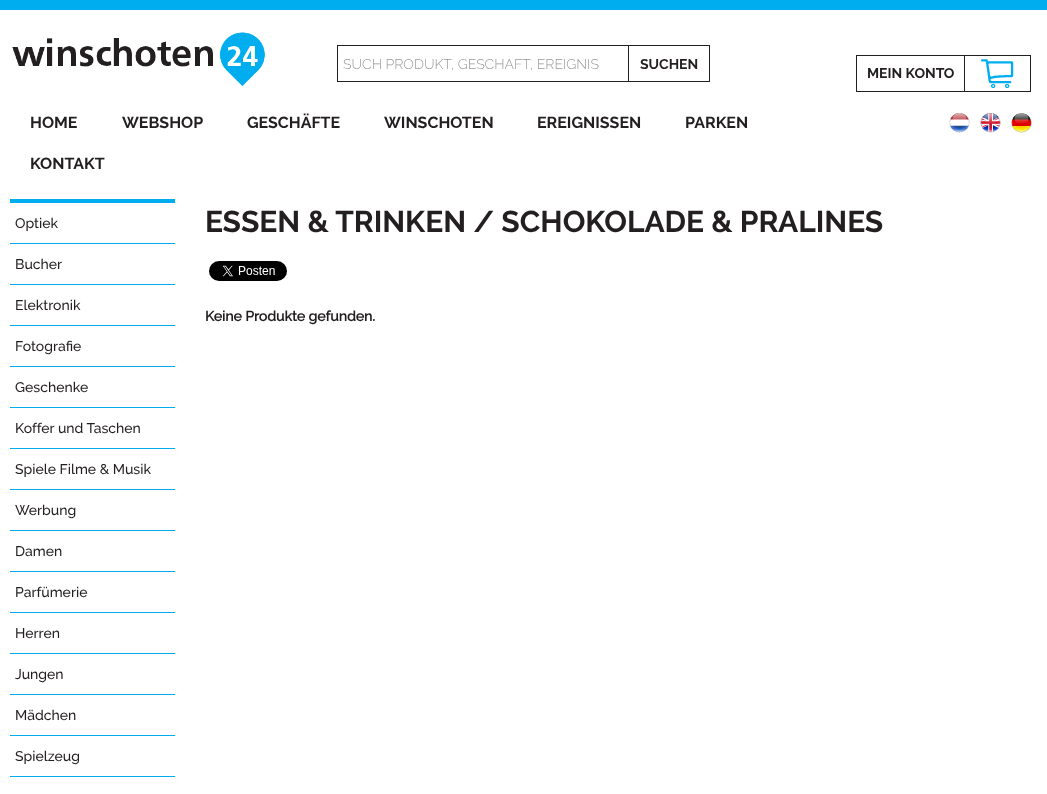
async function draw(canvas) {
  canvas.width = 1047;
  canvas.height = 794;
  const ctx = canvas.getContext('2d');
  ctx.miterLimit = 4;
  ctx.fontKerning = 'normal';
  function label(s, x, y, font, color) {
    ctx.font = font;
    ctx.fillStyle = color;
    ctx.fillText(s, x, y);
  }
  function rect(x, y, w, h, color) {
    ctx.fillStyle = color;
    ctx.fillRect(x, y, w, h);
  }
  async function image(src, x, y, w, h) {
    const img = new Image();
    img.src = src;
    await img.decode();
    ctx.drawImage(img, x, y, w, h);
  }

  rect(0, 0, 1047, 794, '#fff');
  rect(0, 0, 1047, 10, '#00aeef');
  await image('assets/img1.png', 12, 32, 253, 54);
  ctx.strokeStyle = '#231f20';
  ctx.strokeRect(337.5, 45.5, 291, 36);
  label('SUCH PRODUKT, GESCHAFT, EREIGNIS', 343, 69, '300 14px Raleway', '#999');
  rect(629, 45, 81, 1, '#231f20');
  rect(709, 45, 1, 37, '#231f20');
  rect(629, 81, 81, 1, '#231f20');
  label('SUCHEN', 640, 69, 'bold 14px Raleway', '#231f20');
  ctx.strokeRect(856.5, 55.5, 108, 36);
  label('MEIN KONTO', 867, 78, 'bold 14px Raleway', '#231f20');
  rect(965, 55, 66, 1, '#231f20');
  rect(1030, 55, 1, 37, '#231f20');
  rect(965, 91, 66, 1, '#231f20');
  await image('assets/img2.png', 981, 59, 33, 29);
  label('HOME', 30, 128, 'bold 16px Raleway', '#231f20');
  label('WEBSHOP', 122, 128, 'bold 16px Raleway', '#231f20');
  label('GESCHÄFTE', 247, 128, 'bold 16px Raleway', '#231f20');
  label('WINSCHOTEN', 384, 128, 'bold 16px Raleway', '#231f20');
  label('EREIGNISSEN', 537, 128, 'bold 16px Raleway', '#231f20');
  label('PARKEN', 685, 128, 'bold 16px Raleway', '#231f20');
  label('KONTAKT', 30, 169, 'bold 16px Raleway', '#231f20');
  await image('assets/img3.png', 949, 113, 21, 20);
  await image('assets/img4.png', 980, 113, 21, 20);
  await image('assets/img5.png', 1011, 113, 21, 20);
  rect(10, 199, 165, 4, '#00aeef');
  rect(10, 243, 165, 1, '#00aeef');
  label('Optiek', 15, 228, '500 14px Raleway', '#231f20');
  rect(10, 284, 165, 1, '#00aeef');
  label('Bucher', 15, 269, '500 14px Raleway', '#231f20');
  rect(10, 325, 165, 1, '#00aeef');
  label('Elektronik', 15, 310, '500 14px Raleway', '#231f20');
  rect(10, 366, 165, 1, '#00aeef');
  label('Fotografie', 15, 351, '500 14px Raleway', '#231f20');
  rect(10, 407, 165, 1, '#00aeef');
  label('Geschenke', 15, 392, '500 14px Raleway', '#231f20');
  rect(10, 448, 165, 1, '#00aeef');
  label('Koffer und Taschen', 15, 433, '500 14px Raleway', '#231f20');
  rect(10, 489, 165, 1, '#00aeef');
  label('Spiele Filme & Musik', 15, 474, '500 14px Raleway', '#231f20');
  rect(10, 530, 165, 1, '#00aeef');
  label('Werbung', 15, 515, '500 14px Raleway', '#231f20');
  rect(10, 571, 165, 1, '#00aeef');
  label('Damen', 15, 556, '500 14px Raleway', '#231f20');
  rect(10, 612, 165, 1, '#00aeef');
  label('Parfümerie', 15, 597, '500 14px Raleway', '#231f20');
  rect(10, 653, 165, 1, '#00aeef');
  label('Herren', 15, 638, '500 14px Raleway', '#231f20');
  rect(10, 694, 165, 1, '#00aeef');
  label('Jungen', 15, 679, '500 14px Raleway', '#231f20');
  rect(10, 735, 165, 1, '#00aeef');
  label('Mädchen', 15, 720, '500 14px Raleway', '#231f20');
  rect(10, 776, 165, 1, '#00aeef');
  label('Spielzeug', 15, 761, '500 14px Raleway', '#231f20');
  label('ESSEN & TRINKEN / SCHOKOLADE & PRALINES', 205, 232, 'bold 30px Raleway', '#231f20');
  await image('assets/img6.png', 209, 261, 78, 20);
  label('Keine Produkte gefunden.', 205, 321, 'bold 14px "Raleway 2"', '#231f20');
}

draw(document.querySelector('canvas'));
